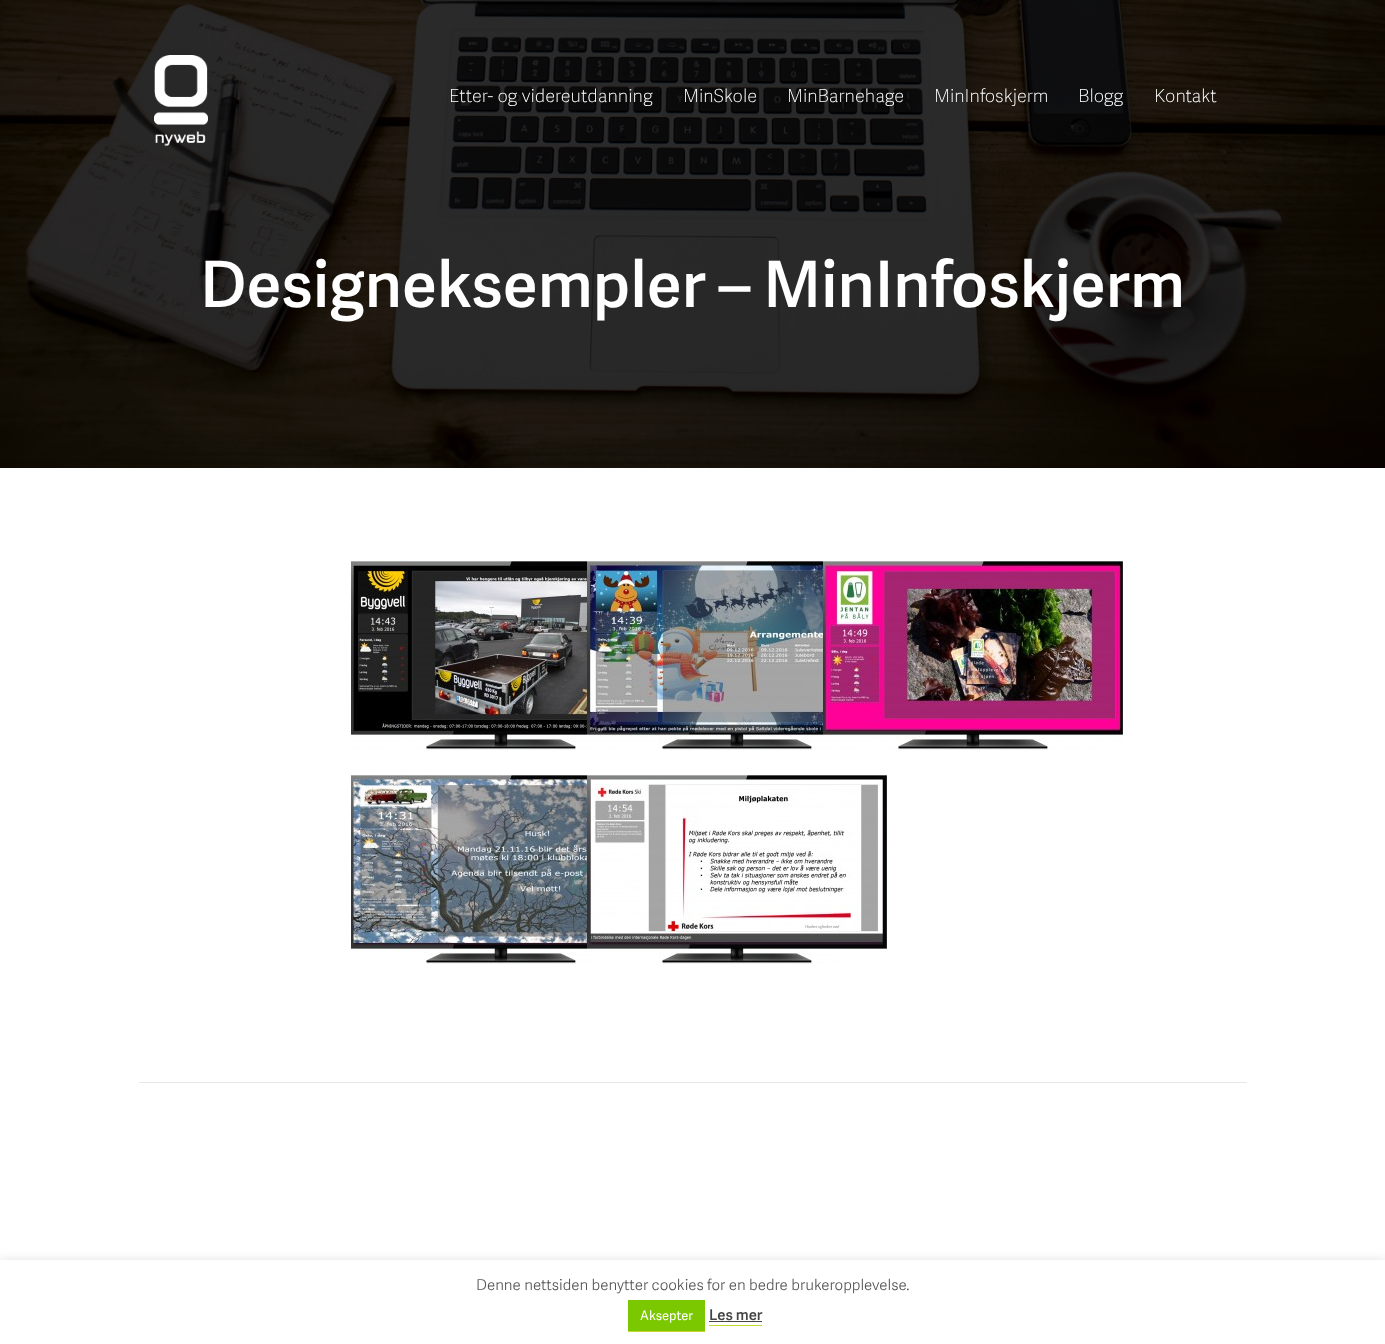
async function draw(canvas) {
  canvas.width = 1385;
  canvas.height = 1344;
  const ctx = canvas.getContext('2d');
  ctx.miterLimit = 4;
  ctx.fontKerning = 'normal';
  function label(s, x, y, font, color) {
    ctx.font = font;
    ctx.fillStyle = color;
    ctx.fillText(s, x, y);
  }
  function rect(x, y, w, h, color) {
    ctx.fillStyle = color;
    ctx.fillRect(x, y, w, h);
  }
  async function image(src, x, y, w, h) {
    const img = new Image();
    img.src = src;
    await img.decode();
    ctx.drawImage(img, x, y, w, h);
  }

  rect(0, 0, 1385, 1344, '#fff');
  await image('assets/img2.png', 0, 0, 1385, 468);
  await image('assets/img1.png', 154, 55, 54, 91);
  label('Etter- og videreutdanning', 449, 102, '100 18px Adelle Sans', '#fff');
  label('MinSkole', 683, 102, '100 18px Adelle Sans', '#fff');
  label('MinBarnehage', 787, 102, '100 18px Adelle Sans', '#fff');
  label('MinInfoskjerm', 934, 102, '100 18px Adelle Sans', '#fff');
  label('Blogg', 1078, 102, '100 18px Adelle Sans', '#fff');
  label('Kontakt', 1154, 102, '100 18px Adelle Sans', '#fff');
  label('Designeksempler – MinInfoskjerm', 200, 307, '600 64px Adelle Sans', '#fff');
  await image('assets/img3.png', 351, 561, 236, 189);
  await image('assets/img4.png', 587, 561, 236, 189);
  await image('assets/img5.png', 823, 561, 300, 189);
  await image('assets/img6.png', 351, 775, 236, 189);
  await image('assets/img7.png', 587, 775, 300, 189);
  rect(139, 1082, 1108, 1, '#e7e7e7');
  ctx.fillStyle = '#acabab4d';
  ctx.filter = 'blur(5px)';
  ctx.beginPath();
  ctx.rect(0, 1259, 1385, 84);
  ctx.fill();
  ctx.filter = 'none';
  rect(0, 1260, 1385, 84, '#fff');
  label('Denne nettsiden benytter cookies for en bedre brukeropplevelse.', 476, 1290, '300 15px Adelle Sans', '#555');
  rect(628, 1300, 77, 31, '#7bc700');
  rect(628, 1331, 77, 1, '#c4d82d');
  label('Aksepter', 640, 1320, '13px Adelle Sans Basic', '#fff');
  label('Les mer', 709, 1320, '600 15px Adelle Sans', '#444');
  rect(709, 1325, 53, 1, '#c4d82d');
  rect(709, 1321, 53, 1, '#444');
}

draw(document.querySelector('canvas'));
